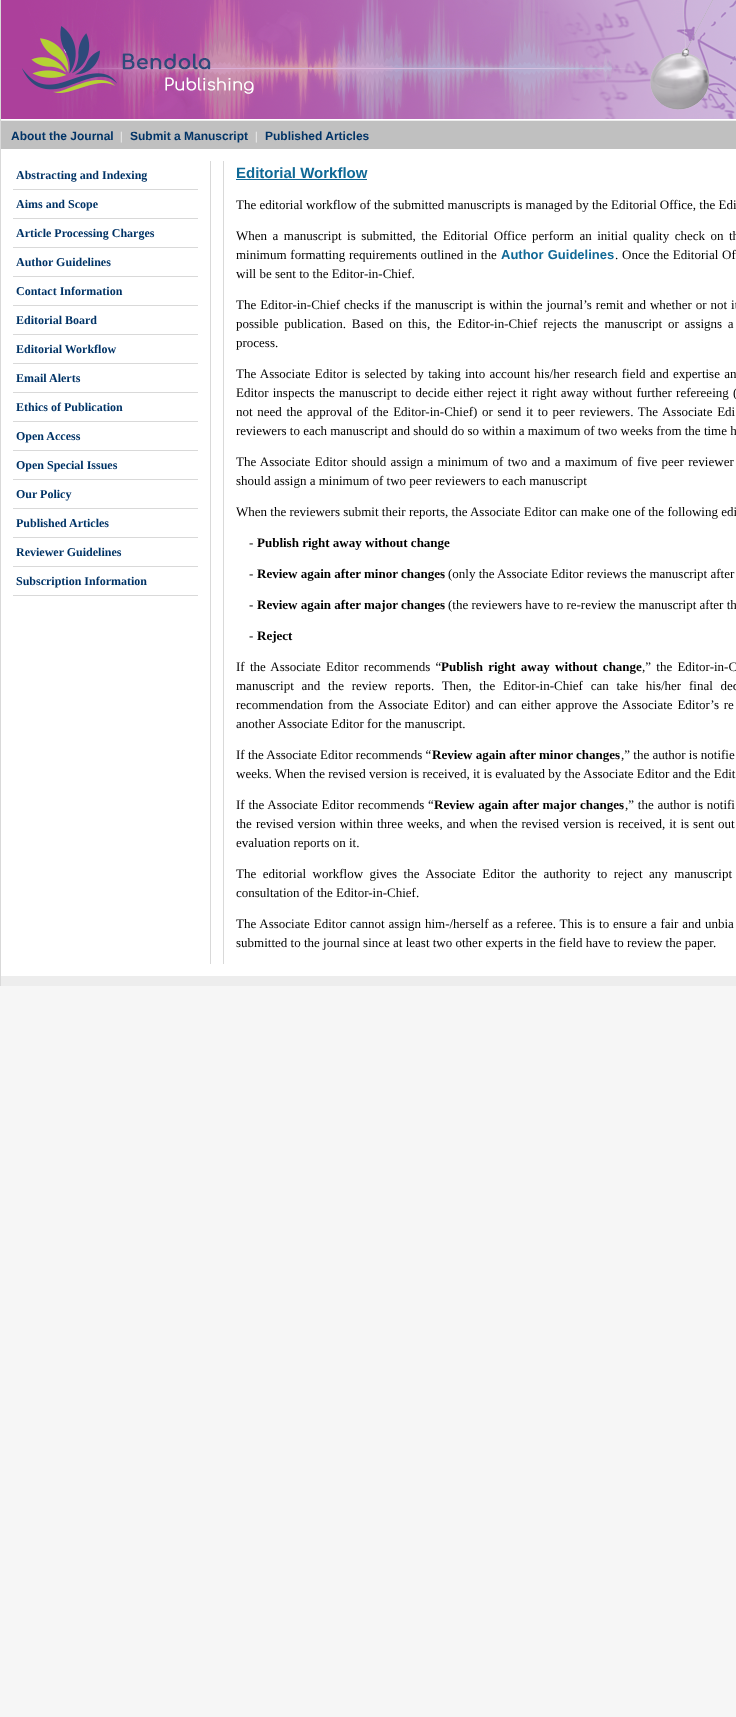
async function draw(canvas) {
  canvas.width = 736;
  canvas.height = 1717;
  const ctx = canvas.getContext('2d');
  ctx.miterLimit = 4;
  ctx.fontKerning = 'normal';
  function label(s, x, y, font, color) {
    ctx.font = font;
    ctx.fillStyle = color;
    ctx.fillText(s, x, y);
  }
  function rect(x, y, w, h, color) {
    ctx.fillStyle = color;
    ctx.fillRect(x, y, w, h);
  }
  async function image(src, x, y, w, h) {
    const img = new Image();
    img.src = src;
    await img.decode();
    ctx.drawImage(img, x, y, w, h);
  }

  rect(0, 0, 736, 1717, '#f6f6f6');
  rect(1, 119, 735, 857, '#fff');
  rect(0, 0, 1, 986, '#d9d9d9');
  await image('assets/img1.png', 1, 0, 735, 119);
  rect(1, 121, 735, 28, '#c0c0c0');
  rect(1, 120, 735, 1, '#ededed');
  label('About the Journal', 11, 140, 'bold 12px Liberation Sans', '#036');
  label('|', 120, 140, '12px Liberation Serif', '#fff');
  label('Submit a Manuscript', 130, 140, 'bold 12px Liberation Sans', '#036');
  label('|', 255, 140, '12px Liberation Serif', '#fff');
  label('Published Articles', 265, 140, 'bold 12px Liberation Sans', '#036');
  rect(13, 189, 185, 1, '#d9d9d9');
  label('Abstracting and Indexing', 16, 179, 'bold 12px Liberation Serif', '#036');
  rect(13, 218, 185, 1, '#d9d9d9');
  label('Aims and Scope', 16, 208, 'bold 12px Liberation Serif', '#036');
  rect(13, 247, 185, 1, '#d9d9d9');
  label('Article Processing Charges', 16, 237, 'bold 12px Liberation Serif', '#036');
  rect(13, 276, 185, 1, '#d9d9d9');
  label('Author Guidelines', 16, 266, 'bold 12px Liberation Serif', '#036');
  rect(13, 305, 185, 1, '#d9d9d9');
  label('Contact Information', 16, 295, 'bold 12px Liberation Serif', '#036');
  rect(13, 334, 185, 1, '#d9d9d9');
  label('Editorial Board', 16, 324, 'bold 12px Liberation Serif', '#036');
  rect(13, 363, 185, 1, '#d9d9d9');
  label('Editorial Workflow', 16, 353, 'bold 12px Liberation Serif', '#036');
  rect(13, 392, 185, 1, '#d9d9d9');
  label('Email Alerts', 16, 382, 'bold 12px Liberation Serif', '#036');
  rect(13, 421, 185, 1, '#d9d9d9');
  label('Ethics of Publication', 16, 411, 'bold 12px Liberation Serif', '#036');
  rect(13, 450, 185, 1, '#d9d9d9');
  label('Open Access', 16, 440, 'bold 12px Liberation Serif', '#036');
  rect(13, 479, 185, 1, '#d9d9d9');
  label('Open Special Issues', 16, 469, 'bold 12px Liberation Serif', '#036');
  rect(13, 508, 185, 1, '#d9d9d9');
  label('Our Policy', 16, 498, 'bold 12px Liberation Serif', '#036');
  rect(13, 537, 185, 1, '#d9d9d9');
  label('Published Articles', 16, 527, 'bold 12px Liberation Serif', '#036');
  rect(13, 566, 185, 1, '#d9d9d9');
  label('Reviewer Guidelines', 16, 556, 'bold 12px Liberation Serif', '#036');
  rect(13, 595, 185, 1, '#d9d9d9');
  label('Subscription Information', 16, 585, 'bold 12px Liberation Serif', '#036');
  rect(210, 161, 1, 803, '#d9d9d9');
  rect(223, 161, 1, 803, '#d9d9d9');
  label('Editorial Workflow', 236, 178, 'bold 15px Liberation Sans', '#106996');
  rect(236, 179, 131, 1, '#106996');
  label('The editorial workflow of the submitted manuscripts is managed by the Editorial Office, the Edi', 236, 209, '13px Liberation Serif', '#000');
  ctx.wordSpacing = '2.25px';
  label('When a manuscript is submitted, the Editorial Office perform an initial quality check on th', 236, 240, '13px Liberation Serif', '#000');
  ctx.wordSpacing = '0.5px';
  label('minimum formatting requirements outlined in the', 236, 259, '13px Liberation Serif', '#000');
  label('Author Guidelines', 501, 259, 'bold 13px Liberation Sans', '#106996');
  label('. Once the Editorial Of', 615, 259, '13px Liberation Serif', '#000');
  ctx.wordSpacing = '0px';
  label('will be sent to the Editor-in-Chief.', 236, 278, '13px Liberation Serif', '#000');
  ctx.wordSpacing = '0.7px';
  label('The Editor-in-Chief checks if the manuscript is within the journal’s remit and whether or not it', 236, 309, '13px Liberation Serif', '#000');
  ctx.wordSpacing = '2.5px';
  label('possible publication. Based on this, the Editor-in-Chief rejects the manuscript or assigns a', 236, 328, '13px Liberation Serif', '#000');
  ctx.wordSpacing = '0px';
  label('process.', 236, 347, '13px Liberation Serif', '#000');
  ctx.wordSpacing = '1.1px';
  label('The Associate Editor is selected by taking into account his/her research field and expertise an', 236, 378, '13px Liberation Serif', '#000');
  ctx.wordSpacing = '1px';
  label('Editor inspects the manuscript to decide either reject it right away without further refereeing (', 236, 397, '13px Liberation Serif', '#000');
  ctx.wordSpacing = '1.4px';
  label('not need the approval of the Editor-in-Chief) or send it to peer reviewers. The Associate Edi', 236, 416, '13px Liberation Serif', '#000');
  ctx.wordSpacing = '0px';
  label('reviewers to each manuscript and should do so within a maximum of two weeks from the time h', 236, 435, '13px Liberation Serif', '#000');
  ctx.wordSpacing = '1.1px';
  label('The Associate Editor should assign a minimum of two and a maximum of five peer reviewer', 236, 466, '13px Liberation Serif', '#000');
  ctx.wordSpacing = '0px';
  label('should assign a minimum of two peer reviewers to each manuscript', 236, 485, '13px Liberation Serif', '#000');
  label('When the reviewers submit their reports, the Associate Editor can make one of the following edi', 236, 516, '13px Liberation Serif', '#000');
  label('-', 249, 547, '13px Liberation Serif', '#000');
  label('Publish right away without change', 257, 547, 'bold 13px Liberation Serif', '#000');
  label('-', 249, 578, '13px Liberation Serif', '#000');
  label('Review again after minor changes', 257, 578, 'bold 13px Liberation Serif', '#000');
  label('(only the Associate Editor reviews the manuscript after', 448, 578, '13px Liberation Serif', '#000');
  label('-', 249, 609, '13px Liberation Serif', '#000');
  label('Review again after major changes', 257, 609, 'bold 13px Liberation Serif', '#000');
  label('(the reviewers have to re-review the manuscript after th', 448, 609, '13px Liberation Serif', '#000');
  label('-', 249, 640, '13px Liberation Serif', '#000');
  label('Reject', 257, 640, 'bold 13px Liberation Serif', '#000');
  ctx.wordSpacing = '2px';
  label('If the Associate Editor recommends “', 236, 671, '13px Liberation Serif', '#000');
  label('Publish right away without change', 441, 671, 'bold 13px Liberation Serif', '#000');
  label(',” the Editor-in-C', 642, 671, '13px Liberation Serif', '#000');
  ctx.wordSpacing = '4.5px';
  label('manuscript and the review reports. Then, the Editor-in-Chief can take his/her final dec', 236, 690, '13px Liberation Serif', '#000');
  ctx.wordSpacing = '1.5px';
  label('recommendation from the Associate Editor) and can either approve the Associate Editor’s re', 236, 709, '13px Liberation Serif', '#000');
  ctx.wordSpacing = '0px';
  label('another Associate Editor for the manuscript.', 236, 728, '13px Liberation Serif', '#000');
  label('If the Associate Editor recommends “', 236, 759, '13px Liberation Serif', '#000');
  label('Review again after minor changes', 432, 759, 'bold 13px Liberation Serif', '#000');
  label(',” the author is notifie', 621, 759, '13px Liberation Serif', '#000');
  label('weeks. When the revised version is received, it is evaluated by the Associate Editor and the Edit', 236, 778, '13px Liberation Serif', '#000');
  ctx.wordSpacing = '0.5px';
  label('If the Associate Editor recommends “', 236, 809, '13px Liberation Serif', '#000');
  label('Review again after major changes', 434, 809, 'bold 13px Liberation Serif', '#000');
  label(',” the author is notifi', 625, 809, '13px Liberation Serif', '#000');
  ctx.wordSpacing = '0.75px';
  label('the revised version within three weeks, and when the revised version is received, it is sent out', 236, 828, '13px Liberation Serif', '#000');
  ctx.wordSpacing = '0px';
  label('evaluation reports on it.', 236, 847, '13px Liberation Serif', '#000');
  ctx.wordSpacing = '3.25px';
  label('The editorial workflow gives the Associate Editor the authority to reject any manuscript', 236, 878, '13px Liberation Serif', '#000');
  ctx.wordSpacing = '0px';
  label('consultation of the Editor-in-Chief.', 236, 897, '13px Liberation Serif', '#000');
  ctx.wordSpacing = '0.6px';
  label('The Associate Editor cannot assign him-/herself as a referee. This is to ensure a fair and unbia', 236, 928, '13px Liberation Serif', '#000');
  ctx.wordSpacing = '0px';
  label('submitted to the journal since at least two other experts in the field have to review the paper.', 236, 947, '13px Liberation Serif', '#000');
  rect(1, 976, 735, 10, '#ededed');
}

draw(document.querySelector('canvas'));
